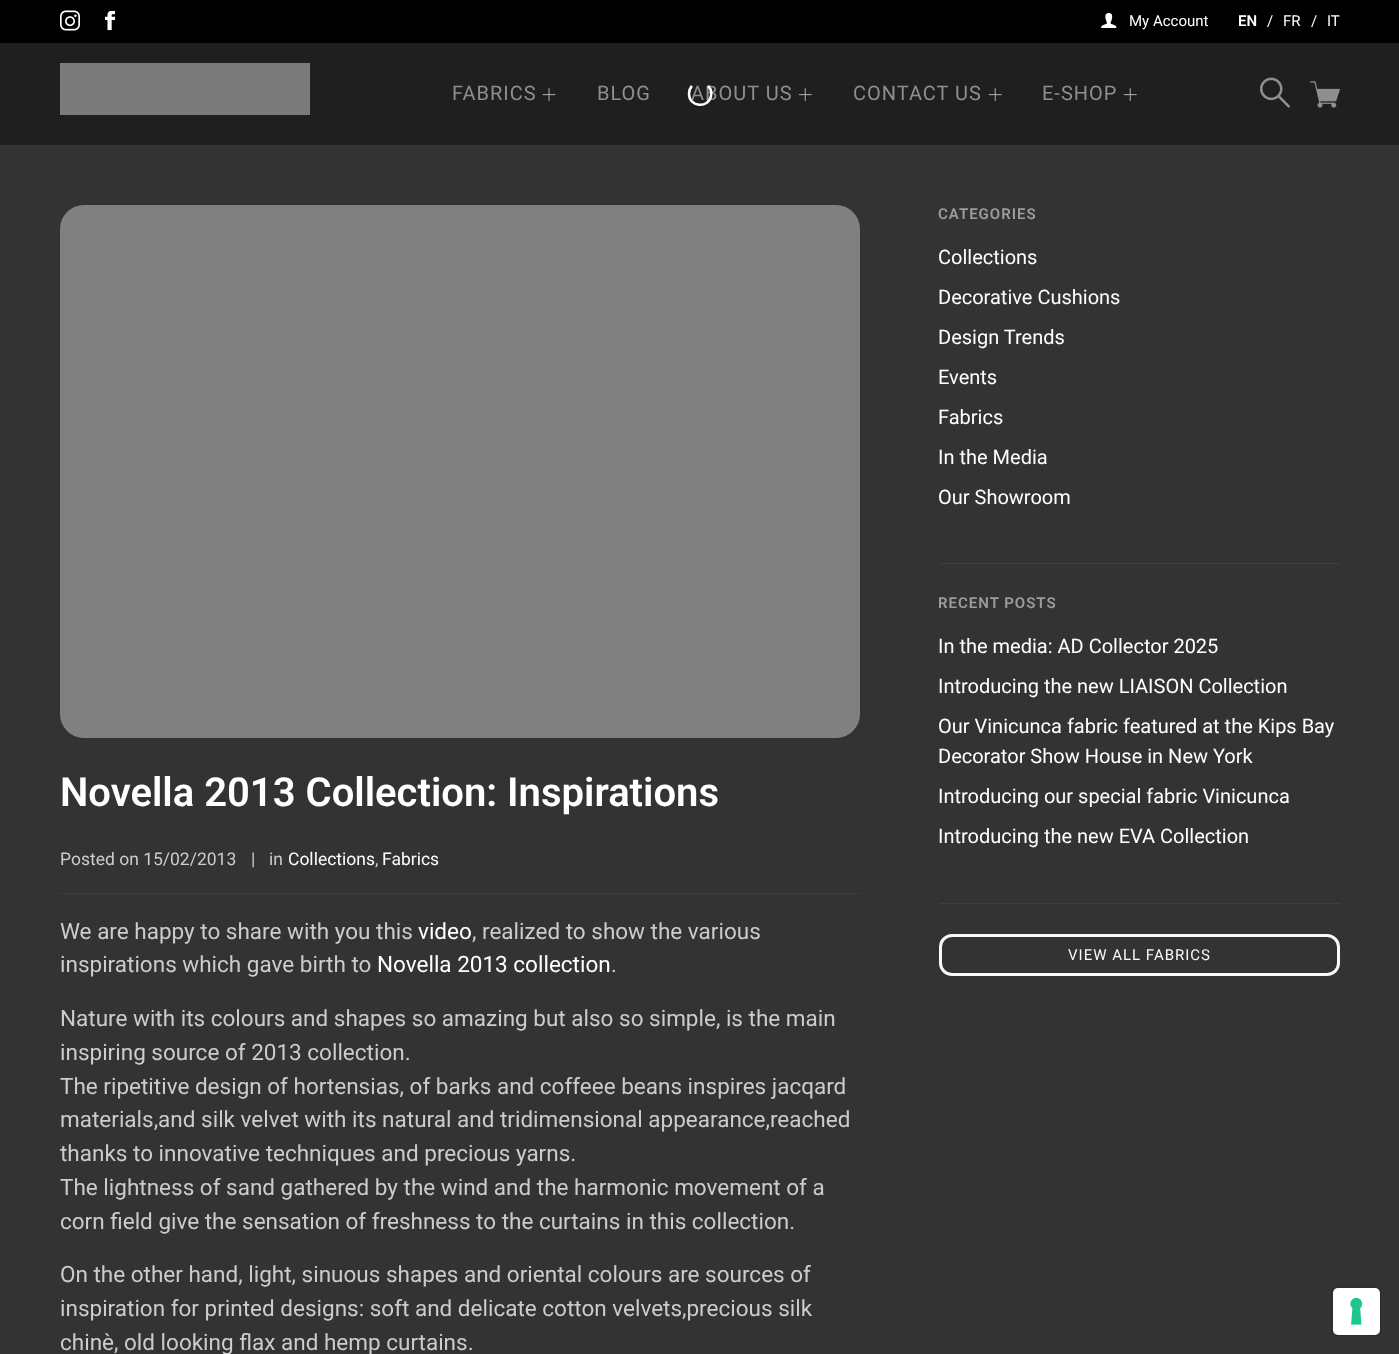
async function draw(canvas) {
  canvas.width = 1399;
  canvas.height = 1354;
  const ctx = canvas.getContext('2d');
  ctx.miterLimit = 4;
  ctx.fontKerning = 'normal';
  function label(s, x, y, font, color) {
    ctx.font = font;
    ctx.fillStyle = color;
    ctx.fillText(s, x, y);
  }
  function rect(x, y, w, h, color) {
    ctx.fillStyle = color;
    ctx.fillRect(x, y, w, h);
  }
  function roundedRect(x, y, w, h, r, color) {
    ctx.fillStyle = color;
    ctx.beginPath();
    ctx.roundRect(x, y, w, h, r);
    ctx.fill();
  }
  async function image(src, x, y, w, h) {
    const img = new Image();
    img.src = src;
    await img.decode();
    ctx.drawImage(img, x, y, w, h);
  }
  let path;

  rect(0, 0, 1399, 1354, '#333');
  rect(0, 0, 1399, 43, '#000');
  await image('assets/img1.png', 60, 10, 20, 21);
  await image('assets/img2.png', 105, 10, 11, 21);
  await image('assets/img3.png', 1101, 13, 16, 15);
  label('My Account', 1129, 26, '15px Roboto', '#fff');
  label('EN', 1238, 26, '600 15px Roboto', '#fff');
  label('/', 1267, 26, '15px Roboto', '#fff');
  label('FR', 1283, 26, '15px Roboto', '#fff');
  label('/', 1311, 26, '15px Roboto', '#fff');
  label('IT', 1327, 26, '15px Roboto', '#fff');
  rect(0, 43, 1399, 102, '#1f1f1f');
  rect(60, 63, 250, 52, '#7b7b7b');
  ctx.letterSpacing = '1px';
  label('ABOUT US', 691, 100, '20px Roboto', '#8f8f8f');
  path = new Path2D('M708 86C710.5 88.5 712 92.5 711 96C708.5 109 689 107 689 94C689 91 690 88 692 86');
  ctx.strokeStyle = '#fff';
  ctx.lineWidth = 2.5;
  ctx.stroke(path);
  label('FABRICS', 452, 100, '20px Roboto', '#8f8f8f');
  await image('assets/img4.png', 542, 88, 14, 13);
  label('BLOG', 597, 100, '20px Roboto', '#8f8f8f');
  await image('assets/img5.png', 798, 88, 14, 14);
  label('CONTACT US', 853, 100, '20px Roboto', '#8f8f8f');
  await image('assets/img5.png', 988, 88, 14, 14);
  label('E-SHOP', 1042, 100, '20px Roboto', '#8f8f8f');
  await image('assets/img5.png', 1123, 88, 14, 14);
  await image('assets/img6.png', 1260, 77, 30, 31);
  await image('assets/img7.png', 1310, 81, 30, 27);
  rect(939, 563, 401, 1, '#3e3e3e');
  label('CATEGORIES', 938, 219, '600 15px Roboto', '#9c9c9c');
  ctx.letterSpacing = '0px';
  label('Collections', 938, 264, '20px Roboto', '#fff');
  label('Decorative Cushions', 938, 304, '20px Roboto', '#fff');
  label('Design Trends', 938, 344, '20px Roboto', '#fff');
  label('Events', 938, 384, '20px Roboto', '#fff');
  label('Fabrics', 938, 424, '20px Roboto', '#fff');
  label('In the Media', 938, 464, '20px Roboto', '#fff');
  label('Our Showroom', 938, 504, '20px Roboto', '#fff');
  rect(939, 903, 401, 1, '#3e3e3e');
  ctx.letterSpacing = '1px';
  label('RECENT POSTS', 938, 608, '600 15px Roboto', '#9c9c9c');
  ctx.letterSpacing = '0px';
  label('In the media: AD Collector 2025', 938, 653, '20px Roboto', '#fff');
  label('Introducing the new LIAISON Collection', 938, 693, '20px Roboto', '#fff');
  label('Our Vinicunca fabric featured at the Kips Bay', 938, 733, '20px Roboto', '#fff');
  label('Decorator Show House in New York', 938, 763, '20px Roboto', '#fff');
  label('Introducing our special fabric Vinicunca', 938, 803, '20px Roboto', '#fff');
  label('Introducing the new EVA Collection', 938, 843, '20px Roboto', '#fff');
  ctx.beginPath();
  ctx.roundRect(940.5, 935.5, 398, 39, 11.5);
  ctx.strokeStyle = '#f8f9fa';
  ctx.lineWidth = 3;
  ctx.stroke();
  ctx.letterSpacing = '1px';
  label('VIEW ALL FABRICS', 1068, 960, '15px Roboto', '#f8f9fa');
  roundedRect(60, 205, 800, 533, 24, '#808080');
  ctx.letterSpacing = '0px';
  label('Novella 2013 Collection: Inspirations', 60, 806, '600 40px Roboto', '#fff');
  rect(60, 893, 800, 1, '#3e3e3e');
  label('Posted on 15/02/2013', 60, 865, '17.5px Roboto', '#ccc');
  label('|', 251, 865, '17.5px Roboto', '#ccc');
  label('in', 269, 865, '17.5px Roboto', '#ccc');
  label('Collections', 288, 865, '17.5px Roboto', '#fff');
  label('Fabrics', 382, 865, '17.5px Roboto', '#fff');
  label(',', 375, 865, '17.5px Roboto', '#ccc');
  label('We are happy to share with you this', 60, 939, '22.5px Roboto', '#ccc');
  label('video', 418, 939, '22.5px Roboto', '#fff');
  label(', realized to show the various', 472, 939, '22.5px Roboto', '#ccc');
  label('inspirations which gave birth to', 60, 972, '22.5px Roboto', '#ccc');
  label('Novella 2013 collection', 377, 972, '22.5px Roboto', '#fff');
  label('.', 611, 972, '22.5px Roboto', '#ccc');
  label('Nature with its colours and shapes so amazing but also so simple, is the main', 60, 1026, '22.5px Roboto', '#ccc');
  label('inspiring source of 2013 collection.', 60, 1060, '22.5px Roboto', '#ccc');
  label('The ripetitive design of hortensias, of barks and coffeee beans inspires jacqard', 60, 1094, '22.5px Roboto', '#ccc');
  label('materials,and silk velvet with its natural and tridimensional appearance,reached', 60, 1127, '22.5px Roboto', '#ccc');
  label('thanks to innovative techniques and precious yarns.', 60, 1161, '22.5px Roboto', '#ccc');
  label('The lightness of sand gathered by the wind and the harmonic movement of a', 60, 1195, '22.5px Roboto', '#ccc');
  label('corn field give the sensation of freshness to the curtains in this collection.', 60, 1229, '22.5px Roboto', '#ccc');
  label('On the other hand, light, sinuous shapes and oriental colours are sources of', 60, 1282, '22.5px Roboto', '#ccc');
  label('inspiration for printed designs: soft and delicate cotton velvets,precious silk', 60, 1316, '22.5px Roboto', '#ccc');
  label('chinè, old looking flax and hemp curtains.', 60, 1350, '22.5px Roboto', '#ccc');
  ctx.beginPath();
  ctx.roundRect(1331.5, 1286.5, 49, 49, 5.5);
  ctx.strokeStyle = '#2b2b2b';
  ctx.lineWidth = 1;
  ctx.stroke();
  roundedRect(1333, 1288, 47, 47, 5, '#fff');
  await image('assets/img8.png', 1350, 1297, 13, 28);
}

draw(document.querySelector('canvas'));
